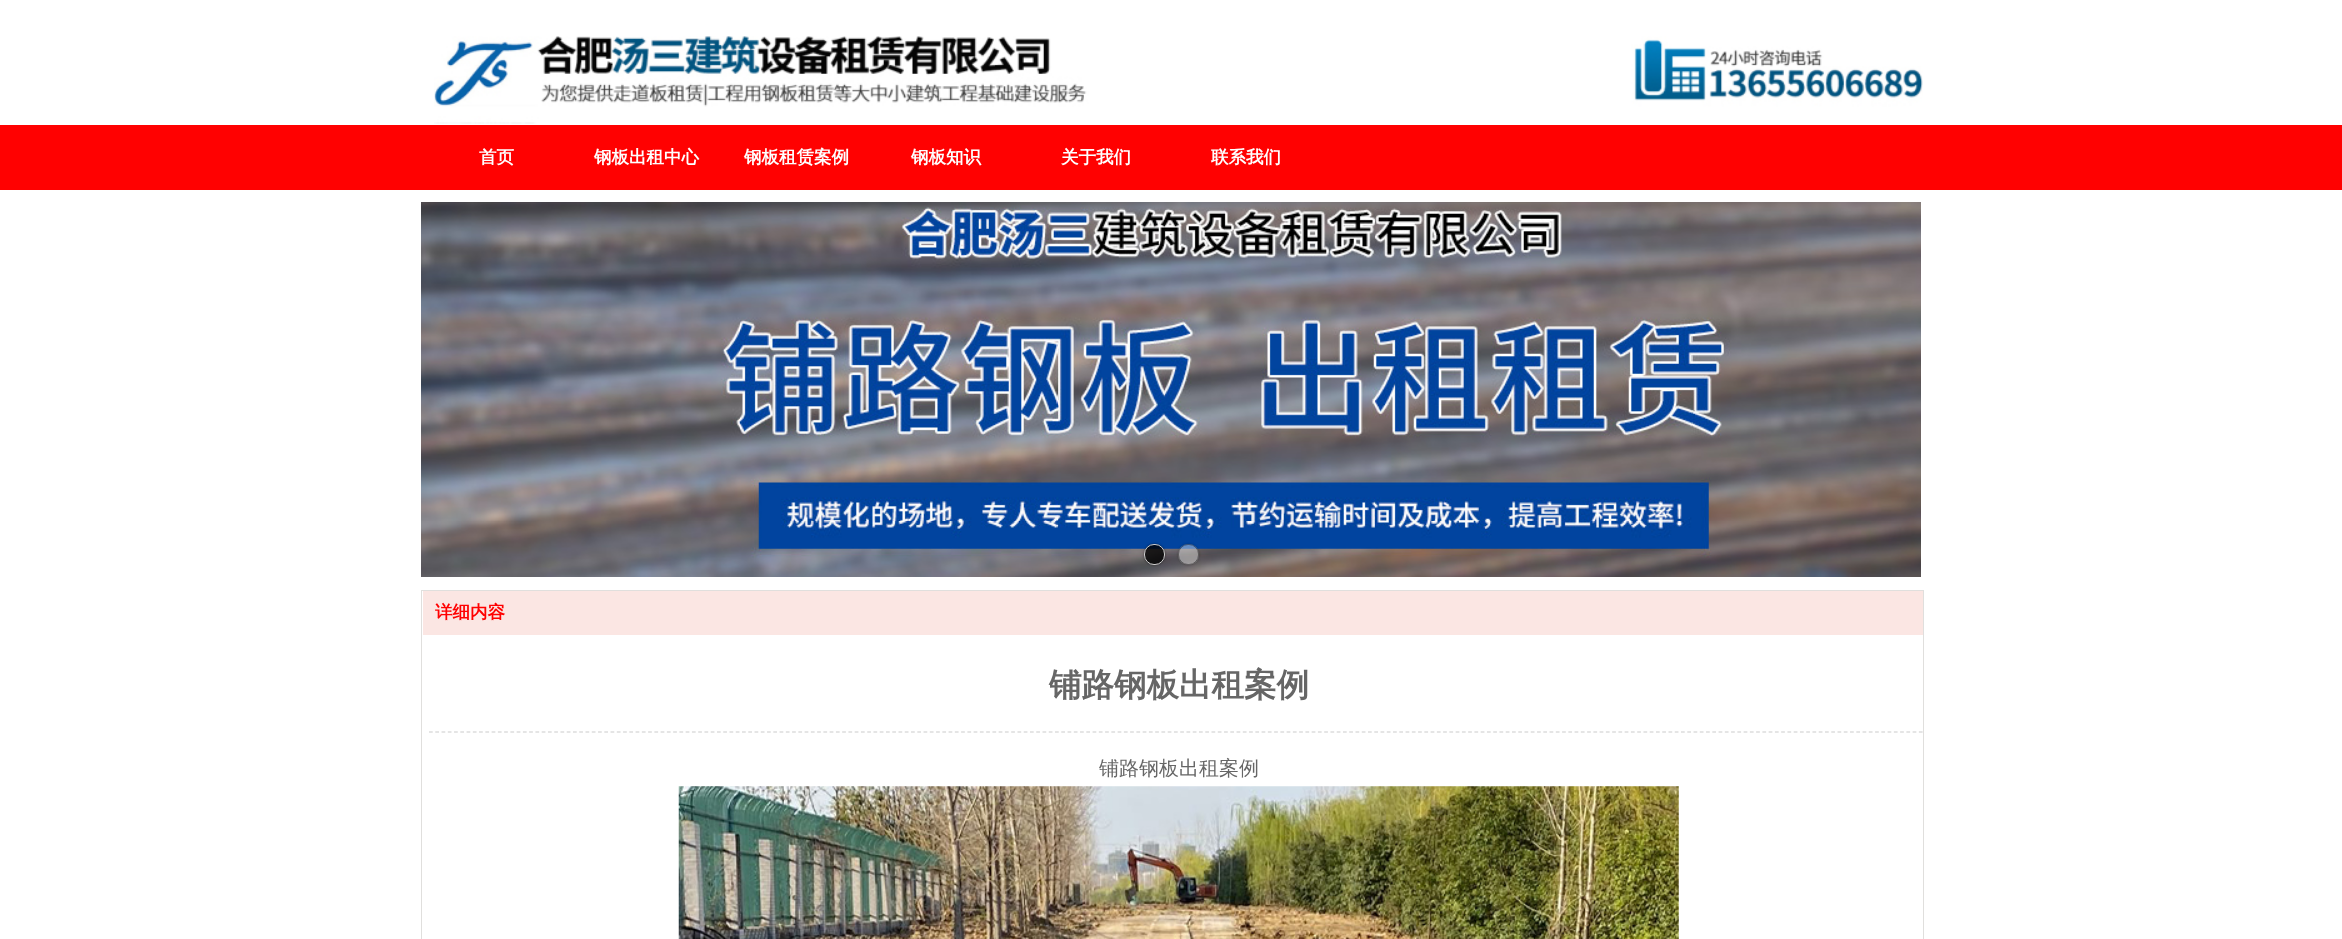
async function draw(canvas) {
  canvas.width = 2342;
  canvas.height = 939;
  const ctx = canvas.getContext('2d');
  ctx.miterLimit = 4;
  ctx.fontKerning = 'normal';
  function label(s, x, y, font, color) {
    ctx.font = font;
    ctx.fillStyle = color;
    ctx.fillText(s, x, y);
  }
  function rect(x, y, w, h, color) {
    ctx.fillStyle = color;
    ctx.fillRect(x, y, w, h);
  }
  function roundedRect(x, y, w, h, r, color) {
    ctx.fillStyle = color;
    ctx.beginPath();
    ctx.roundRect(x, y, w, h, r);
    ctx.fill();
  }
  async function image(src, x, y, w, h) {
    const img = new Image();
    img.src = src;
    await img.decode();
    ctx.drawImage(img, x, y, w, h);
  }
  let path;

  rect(0, 0, 2342, 939, '#fff');
  await image('assets/img1.png', 434, 36, 1489, 88);
  rect(0, 125, 2342, 65, '#ff0101');
  label('首页', 479, 163, 'bold 17.5px WenQuanYi Zen Hei', '#fff');
  label('钢板出租中心', 594, 163, 'bold 17.5px WenQuanYi Zen Hei', '#fff');
  label('钢板租赁案例', 744, 163, 'bold 17.5px WenQuanYi Zen Hei', '#fff');
  label('钢板知识', 911, 163, 'bold 17.5px WenQuanYi Zen Hei', '#fff');
  label('关于我们', 1061, 163, 'bold 17.5px WenQuanYi Zen Hei', '#fff');
  label('联系我们', 1211, 163, 'bold 17.5px WenQuanYi Zen Hei', '#fff');
  await image('assets/img2.png', 421, 202, 1500, 375);
  ctx.save();
  path = new Path2D('M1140 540H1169V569H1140ZM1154 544H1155C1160.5 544 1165 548.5 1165 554V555C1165 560.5 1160.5 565 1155 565H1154C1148.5 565 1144 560.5 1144 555V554C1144 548.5 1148.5 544 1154 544Z');
  ctx.clip(path, 'evenodd');
  ctx.fillStyle = '#0000007a';
  ctx.filter = 'blur(1px)';
  ctx.beginPath();
  ctx.roundRect(1144, 544, 21, 21, 10);
  ctx.fill();
  ctx.filter = 'none';
  ctx.restore();
  roundedRect(1144, 544, 21, 21, 10, '#000000cc');
  ctx.beginPath();
  ctx.roundRect(1144.5, 544.5, 20, 20, 9.5);
  ctx.strokeStyle = '#ffffffcc';
  ctx.stroke();
  ctx.save();
  path = new Path2D('M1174 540H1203V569H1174ZM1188 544H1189C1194.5 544 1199 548.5 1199 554V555C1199 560.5 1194.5 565 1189 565H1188C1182.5 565 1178 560.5 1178 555V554C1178 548.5 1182.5 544 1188 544Z');
  ctx.clip(path, 'evenodd');
  ctx.fillStyle = '#0000003d';
  ctx.filter = 'blur(1px)';
  ctx.beginPath();
  ctx.roundRect(1178, 544, 21, 21, 10);
  ctx.fill();
  ctx.filter = 'none';
  ctx.restore();
  roundedRect(1178, 544, 21, 21, 10, '#ffffff66');
  ctx.beginPath();
  ctx.roundRect(1178.5, 544.5, 20, 20, 9.5);
  ctx.strokeStyle = '#00000066';
  ctx.stroke();
  ctx.strokeStyle = '#e0dfdd';
  ctx.strokeRect(421.5, 590.5, 1502, 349);
  rect(423, 591, 1500, 44, '#fbe6e3');
  label('详细内容', 435, 618, 'bold 17.5px WenQuanYi Zen Hei', '#ff0101');
  ctx.save();
  ctx.beginPath();
  ctx.rect(429, 641, 1494, 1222);
  ctx.clip();
  path = new Path2D('M429 732H1929');
  ctx.strokeStyle = '#ccc';
  ctx.lineWidth = 1.2;
  ctx.setLineDash([3.75, 2.51]);
  ctx.stroke(path);
  ctx.restore();
  label('铺路钢板出租案例', 1049, 696, 'bold 32.5px WenQuanYi Zen Hei', '#666');
  label('铺路钢板出租案例', 1099, 775, '500 20px WenQuanYi Zen Hei', '#666');
  await image('assets/img3.png', 678, 786, 1001, 153);
}

draw(document.querySelector('canvas'));
